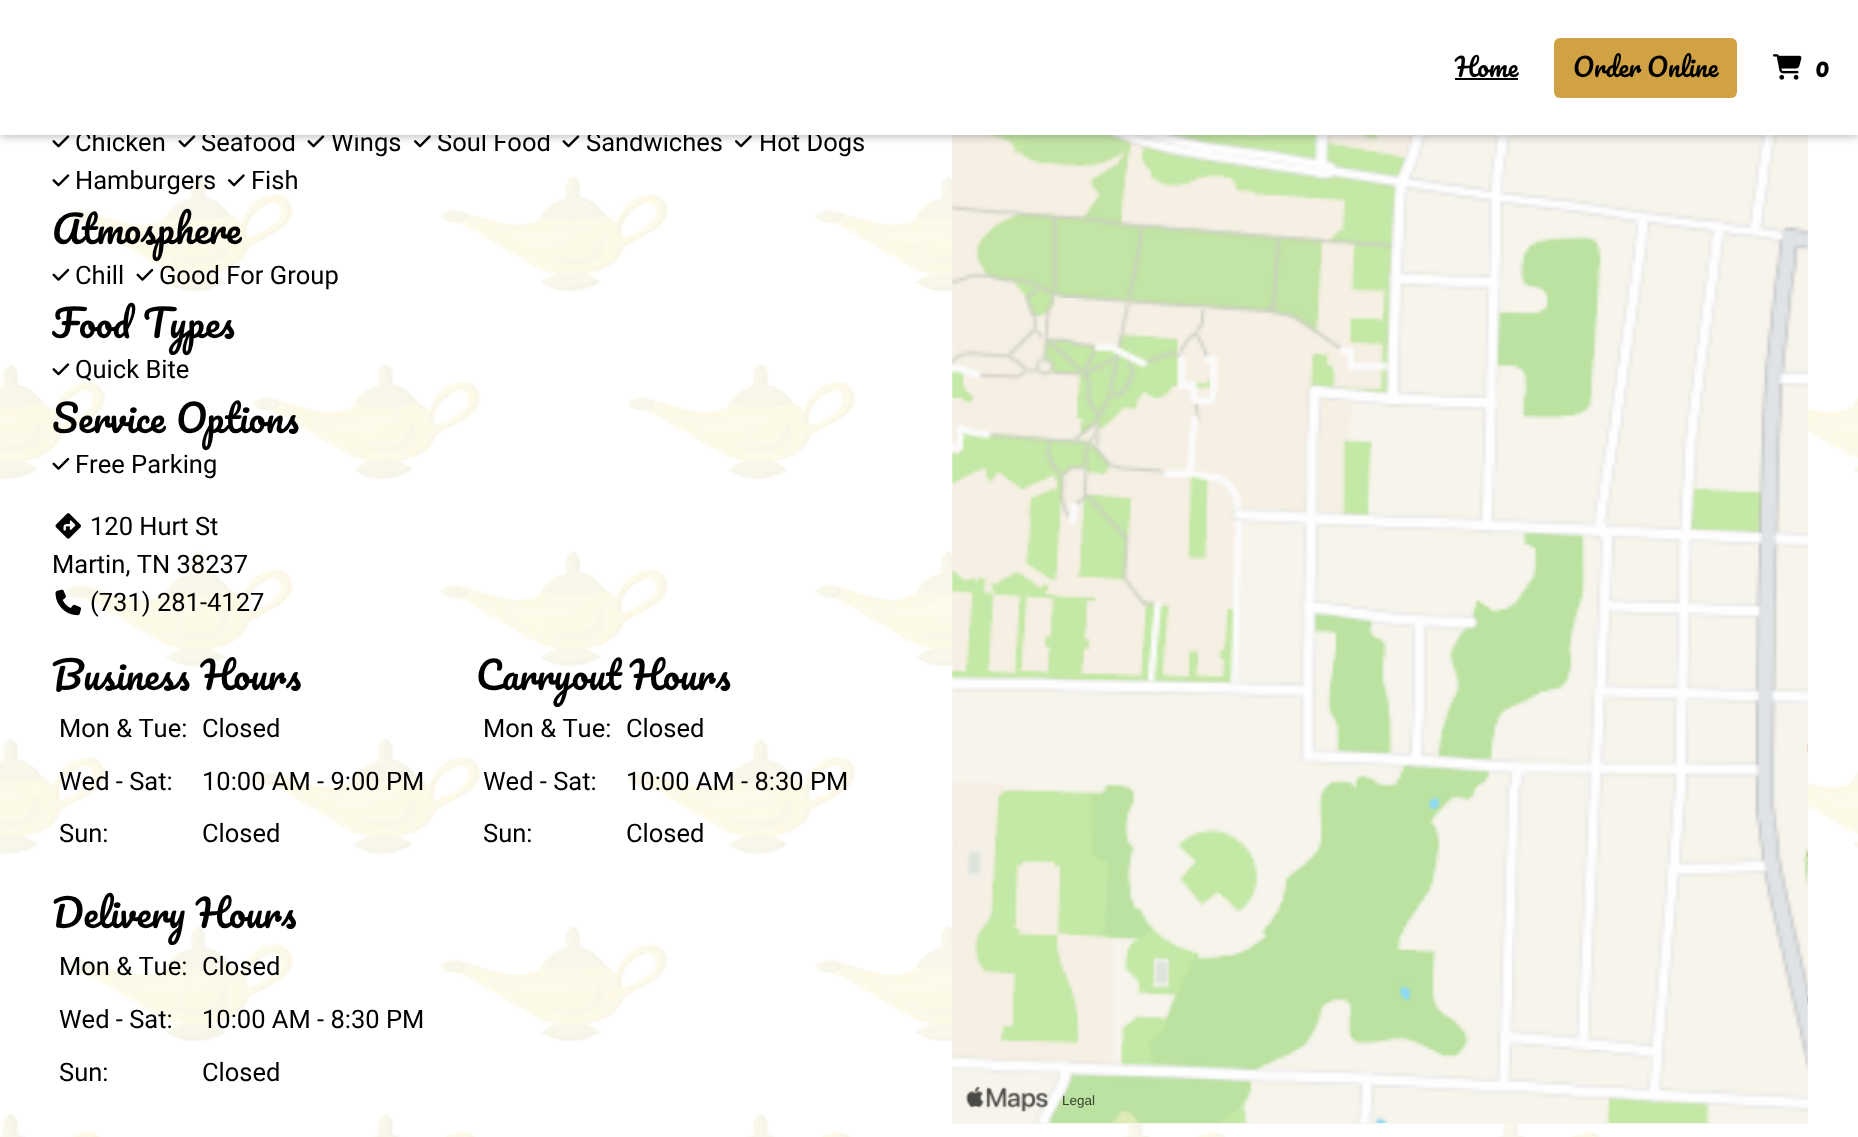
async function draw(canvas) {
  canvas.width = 1858;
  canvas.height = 1137;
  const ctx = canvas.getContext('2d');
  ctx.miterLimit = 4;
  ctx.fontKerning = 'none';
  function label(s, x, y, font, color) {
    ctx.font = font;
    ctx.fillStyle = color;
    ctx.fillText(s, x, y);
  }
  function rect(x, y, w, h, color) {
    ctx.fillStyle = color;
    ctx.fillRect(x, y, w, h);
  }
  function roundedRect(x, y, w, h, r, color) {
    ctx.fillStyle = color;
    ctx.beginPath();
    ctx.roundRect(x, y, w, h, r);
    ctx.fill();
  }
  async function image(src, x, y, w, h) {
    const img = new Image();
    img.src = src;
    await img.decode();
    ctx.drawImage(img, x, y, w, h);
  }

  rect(0, 0, 1858, 1137, '#fff');
  await image('assets/img3.png', 52, 135, 18, 13);
  await image('assets/img3.png', 178, 135, 18, 13);
  await image('assets/img3.png', 307, 135, 18, 13);
  await image('assets/img4.png', 414, 135, 17, 13);
  await image('assets/img3.png', 562, 135, 18, 13);
  await image('assets/img4.png', 735, 135, 17, 13);
  await image('assets/img2.png', 0, 176, 1858, 961);
  rect(953, 135, 855, 989, '#f9f5ed');
  await image('assets/img8.png', 952, 135, 856, 988);
  await image('assets/img9.png', 952, 135, 856, 988);
  ctx.fillStyle = '#20212447';
  ctx.filter = 'blur(4.5px)';
  ctx.beginPath();
  ctx.rect(0, 2, 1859, 135);
  ctx.fill();
  ctx.filter = 'none';
  label('Chicken', 75, 151, '25.5px Roboto', '#000');
  label('Seafood', 201, 151, '25.5px Roboto', '#000');
  label('Wings', 331, 151, '25.5px Roboto', '#000');
  label('Soul Food', 437, 151, '25.5px Roboto', '#000');
  label('Sandwiches', 586, 151, '25.5px Roboto', '#000');
  label('Hot Dogs', 759, 151, '25.5px Roboto', '#000');
  rect(0, 0, 1858, 135, '#fff');
  label('Home', 1455, 77, '25.5px Pacifico', '#000');
  rect(1455, 78, 63, 2, '#000');
  roundedRect(1554, 38, 183, 60, 6, '#d0a244');
  ctx.wordSpacing = '-1px';
  label('Order Online', 1573, 77, '25.5px Pacifico', '#000');
  await image('assets/img1.png', 1773, 54, 29, 26);
  ctx.wordSpacing = '0px';
  label('0', 1815, 77, 'bold 25.5px Pacifico', '#000');
  await image('assets/img3.png', 52, 174, 18, 13);
  label('Hamburgers', 75, 189, '25.5px Roboto', '#000');
  await image('assets/img4.png', 228, 174, 17, 13);
  label('Fish', 251, 189, '25.5px Roboto', '#000');
  label('Atmosphere', 52, 244, '37.5px Pacifico', '#000');
  await image('assets/img5.png', 52, 268, 18, 13);
  label('Chill', 75, 284, '25.5px Roboto', '#000');
  await image('assets/img5.png', 136, 268, 18, 13);
  label('Good For Group', 159, 284, '25.5px Roboto', '#000');
  ctx.wordSpacing = '2px';
  label('Food Types', 52, 338, '37.5px Pacifico', '#000');
  await image('assets/img3.png', 52, 363, 18, 13);
  ctx.wordSpacing = '0px';
  label('Quick Bite', 75, 378, '25.5px Roboto', '#000');
  ctx.wordSpacing = '1px';
  label('Service Options', 52, 433, '37.5px Pacifico', '#000');
  await image('assets/img5.png', 52, 457, 18, 13);
  ctx.wordSpacing = '0px';
  label('Free Parking', 75, 473, '25.5px Roboto', '#000');
  await image('assets/img6.png', 55, 513, 26, 26);
  label('120 Hurt St', 90, 535, '25.5px Roboto', '#000');
  label('Martin, TN 38237', 52, 573, '25.5px Roboto', '#000');
  await image('assets/img7.png', 55, 589, 26, 27);
  label('(731) 281-4127', 90, 611, '25.5px Roboto', '#000');
  ctx.wordSpacing = '1px';
  label('Business Hours', 52, 690, '37.5px Pacifico', '#000');
  ctx.wordSpacing = '0px';
  label('Mon & Tue:', 59, 737, '25.5px Roboto', '#000');
  label('Closed', 202, 737, '25.5px Roboto', '#000');
  label('Wed - Sat:', 59, 790, '25.5px Roboto', '#000');
  label('10:00 AM - 9:00 PM', 202, 790, '25.5px Roboto', '#000');
  label('Sun:', 59, 842, '25.5px Roboto', '#000');
  label('Closed', 202, 842, '25.5px Roboto', '#000');
  ctx.wordSpacing = '-1px';
  label('Carryout Hours', 476, 690, '37.5px Pacifico', '#000');
  ctx.wordSpacing = '0px';
  label('Mon & Tue:', 483, 737, '25.5px Roboto', '#000');
  label('Closed', 626, 737, '25.5px Roboto', '#000');
  label('Wed - Sat:', 483, 790, '25.5px Roboto', '#000');
  label('10:00 AM - 8:30 PM', 626, 790, '25.5px Roboto', '#000');
  label('Sun:', 483, 842, '25.5px Roboto', '#000');
  label('Closed', 626, 842, '25.5px Roboto', '#000');
  ctx.wordSpacing = '1px';
  label('Delivery Hours', 52, 928, '37.5px Pacifico', '#000');
  ctx.wordSpacing = '0px';
  label('Mon & Tue:', 59, 975, '25.5px Roboto', '#000');
  label('Closed', 202, 975, '25.5px Roboto', '#000');
  label('Wed - Sat:', 59, 1028, '25.5px Roboto', '#000');
  label('10:00 AM - 8:30 PM', 202, 1028, '25.5px Roboto', '#000');
  label('Sun:', 59, 1081, '25.5px Roboto', '#000');
  label('Closed', 202, 1081, '25.5px Roboto', '#000');
  await image('assets/img10.png', 965, 1086, 84, 27);
  label('Legal', 1062, 1105, '13.5px Liberation Sans', '#384431');
}

draw(document.querySelector('canvas'));
